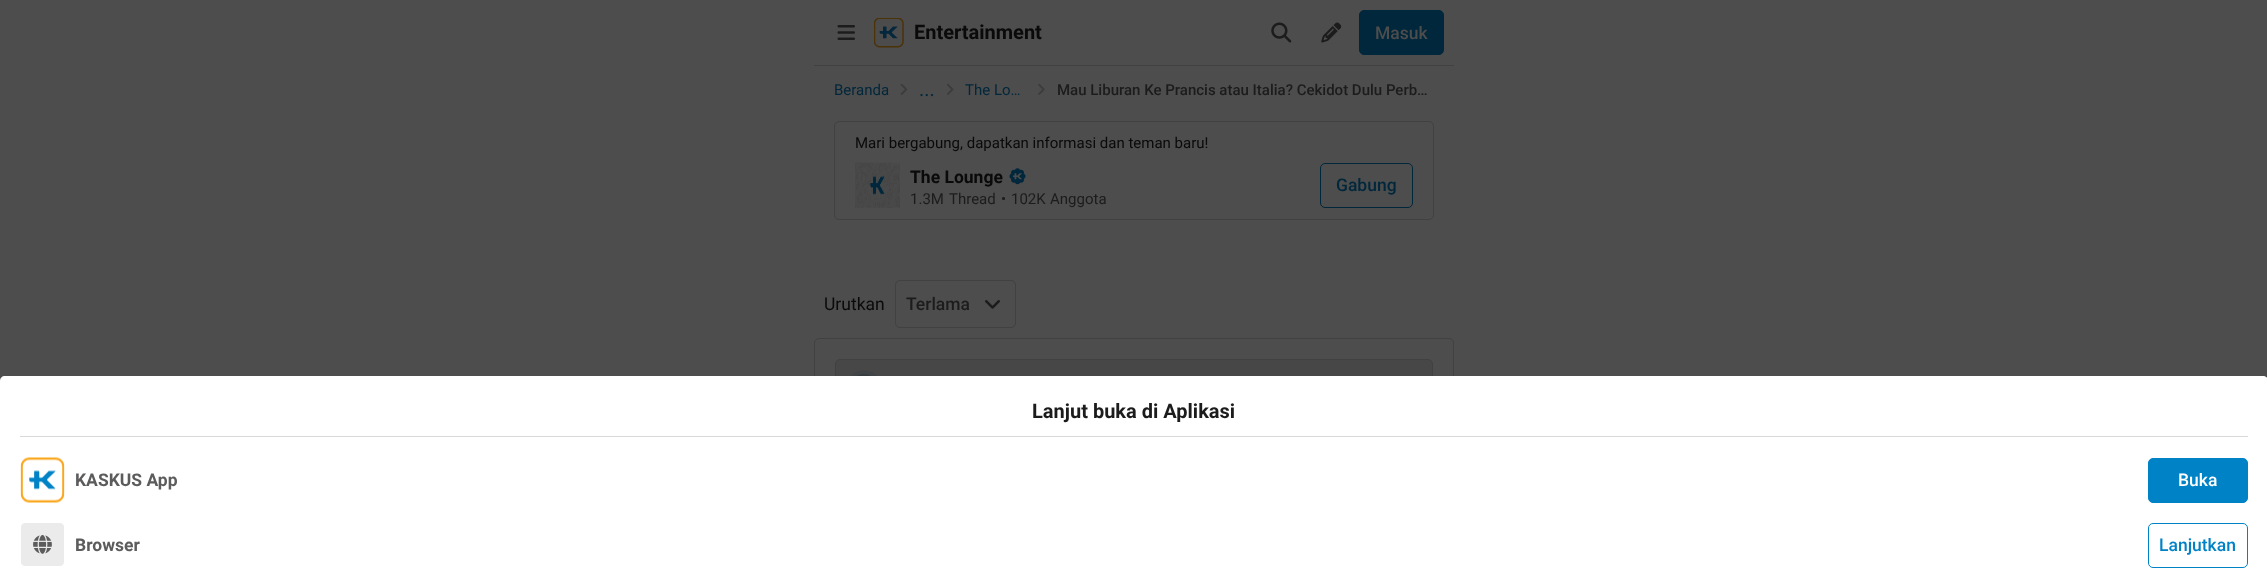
async function draw(canvas) {
  canvas.width = 2267;
  canvas.height = 587;
  const ctx = canvas.getContext('2d');
  ctx.miterLimit = 4;
  ctx.fontKerning = 'normal';
  function label(s, x, y, font, color) {
    ctx.font = font;
    ctx.fillStyle = color;
    ctx.fillText(s, x, y);
  }
  function rect(x, y, w, h, color) {
    ctx.fillStyle = color;
    ctx.fillRect(x, y, w, h);
  }
  async function image(src, x, y, w, h) {
    const img = new Image();
    img.src = src;
    await img.decode();
    ctx.drawImage(img, x, y, w, h);
  }
  let path;

  rect(0, 0, 2267, 587, '#4d4d4d');
  rect(814, 65, 640, 1, '#414141');
  await image('assets/img1.png', 837, 25, 18, 15);
  await image('assets/img2.png', 874, 18, 30, 30);
  label('Entertainment', 914, 39, 'bold 20px Roboto', '#0a0a0a');
  await image('assets/img3.png', 1271, 22, 21, 21);
  await image('assets/img4.png', 1321, 22, 21, 21);
  ctx.fillStyle = '#00273b';
  ctx.beginPath();
  ctx.roundRect(1359.5, 10.5, 84, 44, 4.5);
  ctx.fill();
  ctx.strokeStyle = '#00273b';
  ctx.stroke();
  label('Masuk', 1375, 39, '500 17.5px Roboto', '#4d4d4d');
  label('Beranda', 834, 95, '15px Roboto', '#00273b');
  await image('assets/img5.png', 900, 83, 8, 12);
  label('...', 919, 96, '20px Roboto', '#00273b');
  await image('assets/img6.png', 947, 83, 7, 12);
  label('The Lo…', 965, 95, '15px Roboto', '#00273b');
  await image('assets/img7.png', 1038, 83, 7, 12);
  label('Mau Liburan Ke Prancis atau Italia? Cekidot Dulu Perb…', 1057, 95, '500 15px Roboto', '#1c1c1c');
  ctx.beginPath();
  ctx.roundRect(834.5, 121.5, 599, 98, 4.5);
  ctx.strokeStyle = '#414141';
  ctx.stroke();
  label('Mari bergabung, dapatkan informasi dan teman baru!', 855, 148, '15px Roboto', '#0a0a0a');
  await image('assets/img8.png', 855, 162, 45, 46);
  label('The Lounge', 910, 183, 'bold 17.5px Roboto', '#0a0a0a');
  await image('assets/img9.png', 1009, 168, 17, 17);
  label('1.3M', 910, 204, '15px Roboto', '#1c1c1c');
  label('Thread', 949, 204, '15px Roboto', '#1c1c1c');
  label('•', 1001, 204, '15px Roboto', '#1c1c1c');
  label('102K', 1011, 204, '15px Roboto', '#1c1c1c');
  label('Anggota', 1050, 204, '15px Roboto', '#1c1c1c');
  ctx.beginPath();
  ctx.roundRect(1320.5, 163.5, 92, 44, 4.5);
  ctx.strokeStyle = '#00273b';
  ctx.stroke();
  label('Gabung', 1336, 191, '500 17.5px Roboto', '#00273b');
  label('Urutkan', 824, 310, '17.5px Roboto', '#0a0a0a');
  ctx.beginPath();
  ctx.roundRect(895.5, 280.5, 120, 47, 4.5);
  ctx.strokeStyle = '#414141';
  ctx.stroke();
  label('Terlama', 906, 310, '500 17.5px Roboto', '#1c1c1c');
  await image('assets/img10.png', 985, 300, 15, 9);
  ctx.beginPath();
  ctx.roundRect(814.5, 338.5, 639, 99, 4.5);
  ctx.stroke();
  ctx.fillStyle = '#474747';
  ctx.beginPath();
  ctx.roundRect(835.5, 359.5, 597, 56, 4.5);
  ctx.fill();
  ctx.stroke();
  await image('assets/img12.png', 856, 374, 15, 2);
  await image('assets/img11.png', 851, 370, 26, 6);
  ctx.fillStyle = '#fff';
  path = new Path2D('M5 376H2263C2266 376 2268 378 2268 381V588H0V381C0 378 2 376 5 376Z');
  ctx.fill(path);
  label('Lanjut buka di Aplikasi', 1032, 418, 'bold 20px Roboto', '#1c1c1c');
  rect(20, 436, 2228, 1, '#d9d9d9');
  await image('assets/img13.png', 20, 457, 45, 46);
  label('KASKUS App', 75, 486, 'bold 17.5px Roboto', '#5c5c5c');
  ctx.fillStyle = '#0082c6';
  ctx.beginPath();
  ctx.roundRect(2148.5, 458.5, 99, 44, 4.5);
  ctx.fill();
  ctx.strokeStyle = '#0082c6';
  ctx.stroke();
  label('Buka', 2178, 486, '500 17.5px Roboto', '#fff');
  await image('assets/img14.png', 21, 523, 43, 43);
  label('Browser', 75, 551, 'bold 17.5px Roboto', '#5c5c5c');
  ctx.beginPath();
  ctx.roundRect(2148.5, 523.5, 99, 44, 4.5);
  ctx.stroke();
  label('Lanjutkan', 2159, 551, '500 17.5px Roboto', '#0082c6');
}

draw(document.querySelector('canvas'));
